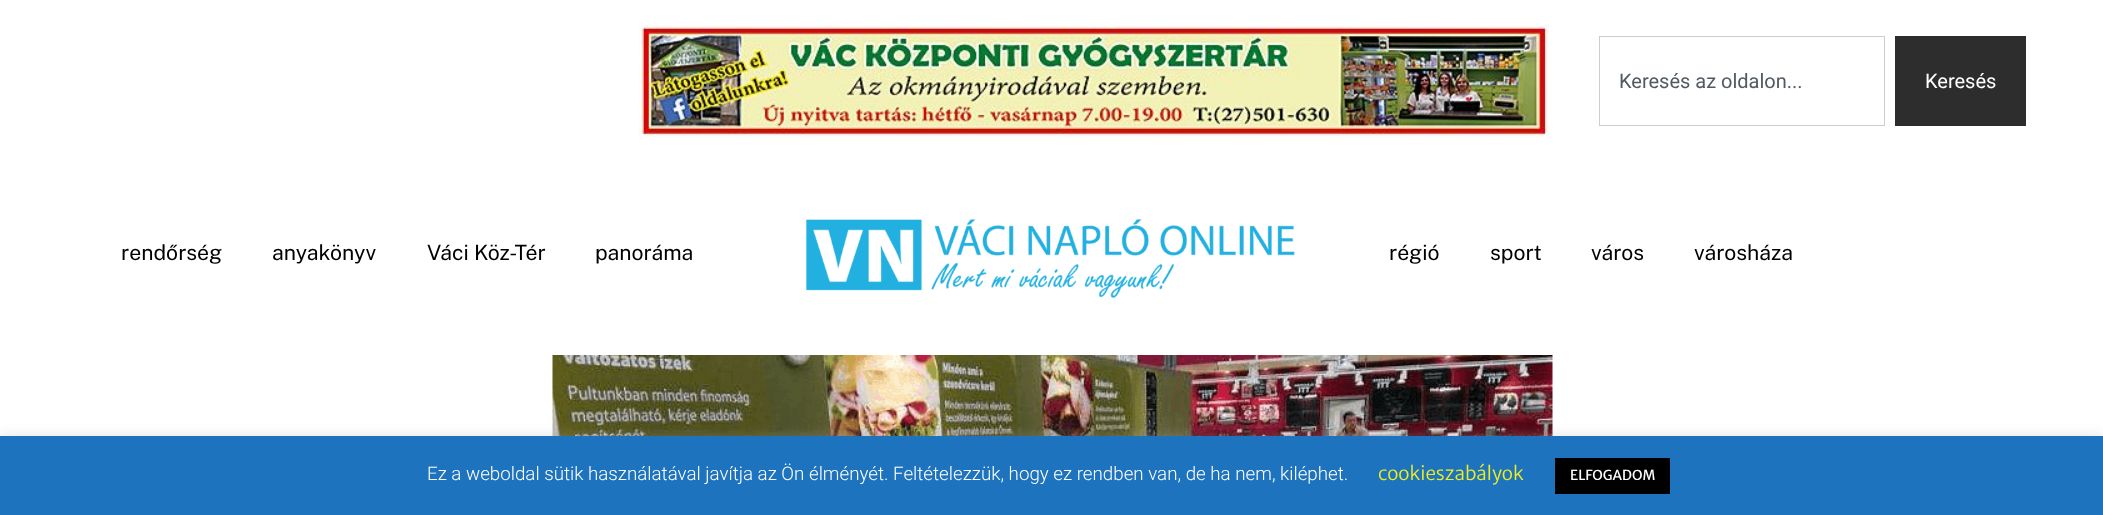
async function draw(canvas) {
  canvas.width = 2103;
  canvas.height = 515;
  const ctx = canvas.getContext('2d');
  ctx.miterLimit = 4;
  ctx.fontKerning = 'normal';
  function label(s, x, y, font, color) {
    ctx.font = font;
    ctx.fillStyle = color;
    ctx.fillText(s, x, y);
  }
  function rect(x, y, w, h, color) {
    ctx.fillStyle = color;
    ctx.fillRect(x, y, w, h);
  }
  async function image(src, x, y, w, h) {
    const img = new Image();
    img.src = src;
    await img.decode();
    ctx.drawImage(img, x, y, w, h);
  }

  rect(0, 0, 2103, 515, '#fff');
  await image('assets/img1.png', 638, 25, 911, 113);
  ctx.strokeStyle = '#cdcdcd';
  ctx.strokeRect(1599.5, 36.5, 285, 89);
  label('Keresés az oldalon...', 1619, 88, '20px Roboto', '#515962');
  rect(1895, 36, 131, 90, '#2d2d2d');
  label('Keresés', 1925, 88, '20px Roboto', '#fff');
  label('rendőrség', 121, 260, '21.25px Public Sans', '#000');
  label('anyakönyv', 272, 260, '21.25px Public Sans', '#000');
  label('Váci Köz-Tér', 427, 260, '21.25px Public Sans', '#000');
  label('panoráma', 595, 260, '21.25px Public Sans', '#000');
  await image('assets/img2.png', 806, 219, 489, 79);
  label('régió', 1389, 260, '21.25px Public Sans', '#000');
  label('sport', 1490, 260, '21.25px Public Sans', '#000');
  label('város', 1591, 260, '21.25px Public Sans', '#000');
  label('városháza', 1694, 260, '21.25px Public Sans', '#000');
  await image('assets/img3.png', 552, 355, 1001, 81);
  ctx.fillStyle = '#acabab4d';
  ctx.filter = 'blur(6px)';
  ctx.beginPath();
  ctx.rect(0, 435, 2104, 79);
  ctx.fill();
  ctx.filter = 'none';
  rect(0, 436, 2103, 79, '#1e73be');
  label('Ez a weboldal sütik használatával javítja az Ön élményét. Feltételezzük, hogy ez rendben van, de ha nem, kiléphet.', 427, 480, '300 18.75px Roboto', '#fff');
  label('cookieszabályok', 1378, 480, '300 18.75px Merriweather Sans', '#ee2');
  rect(1555, 458, 115, 36, '#000');
  label('ELFOGADOM', 1570, 480, '13.75px Merriweather Sans', '#fff');
}

draw(document.querySelector('canvas'));
